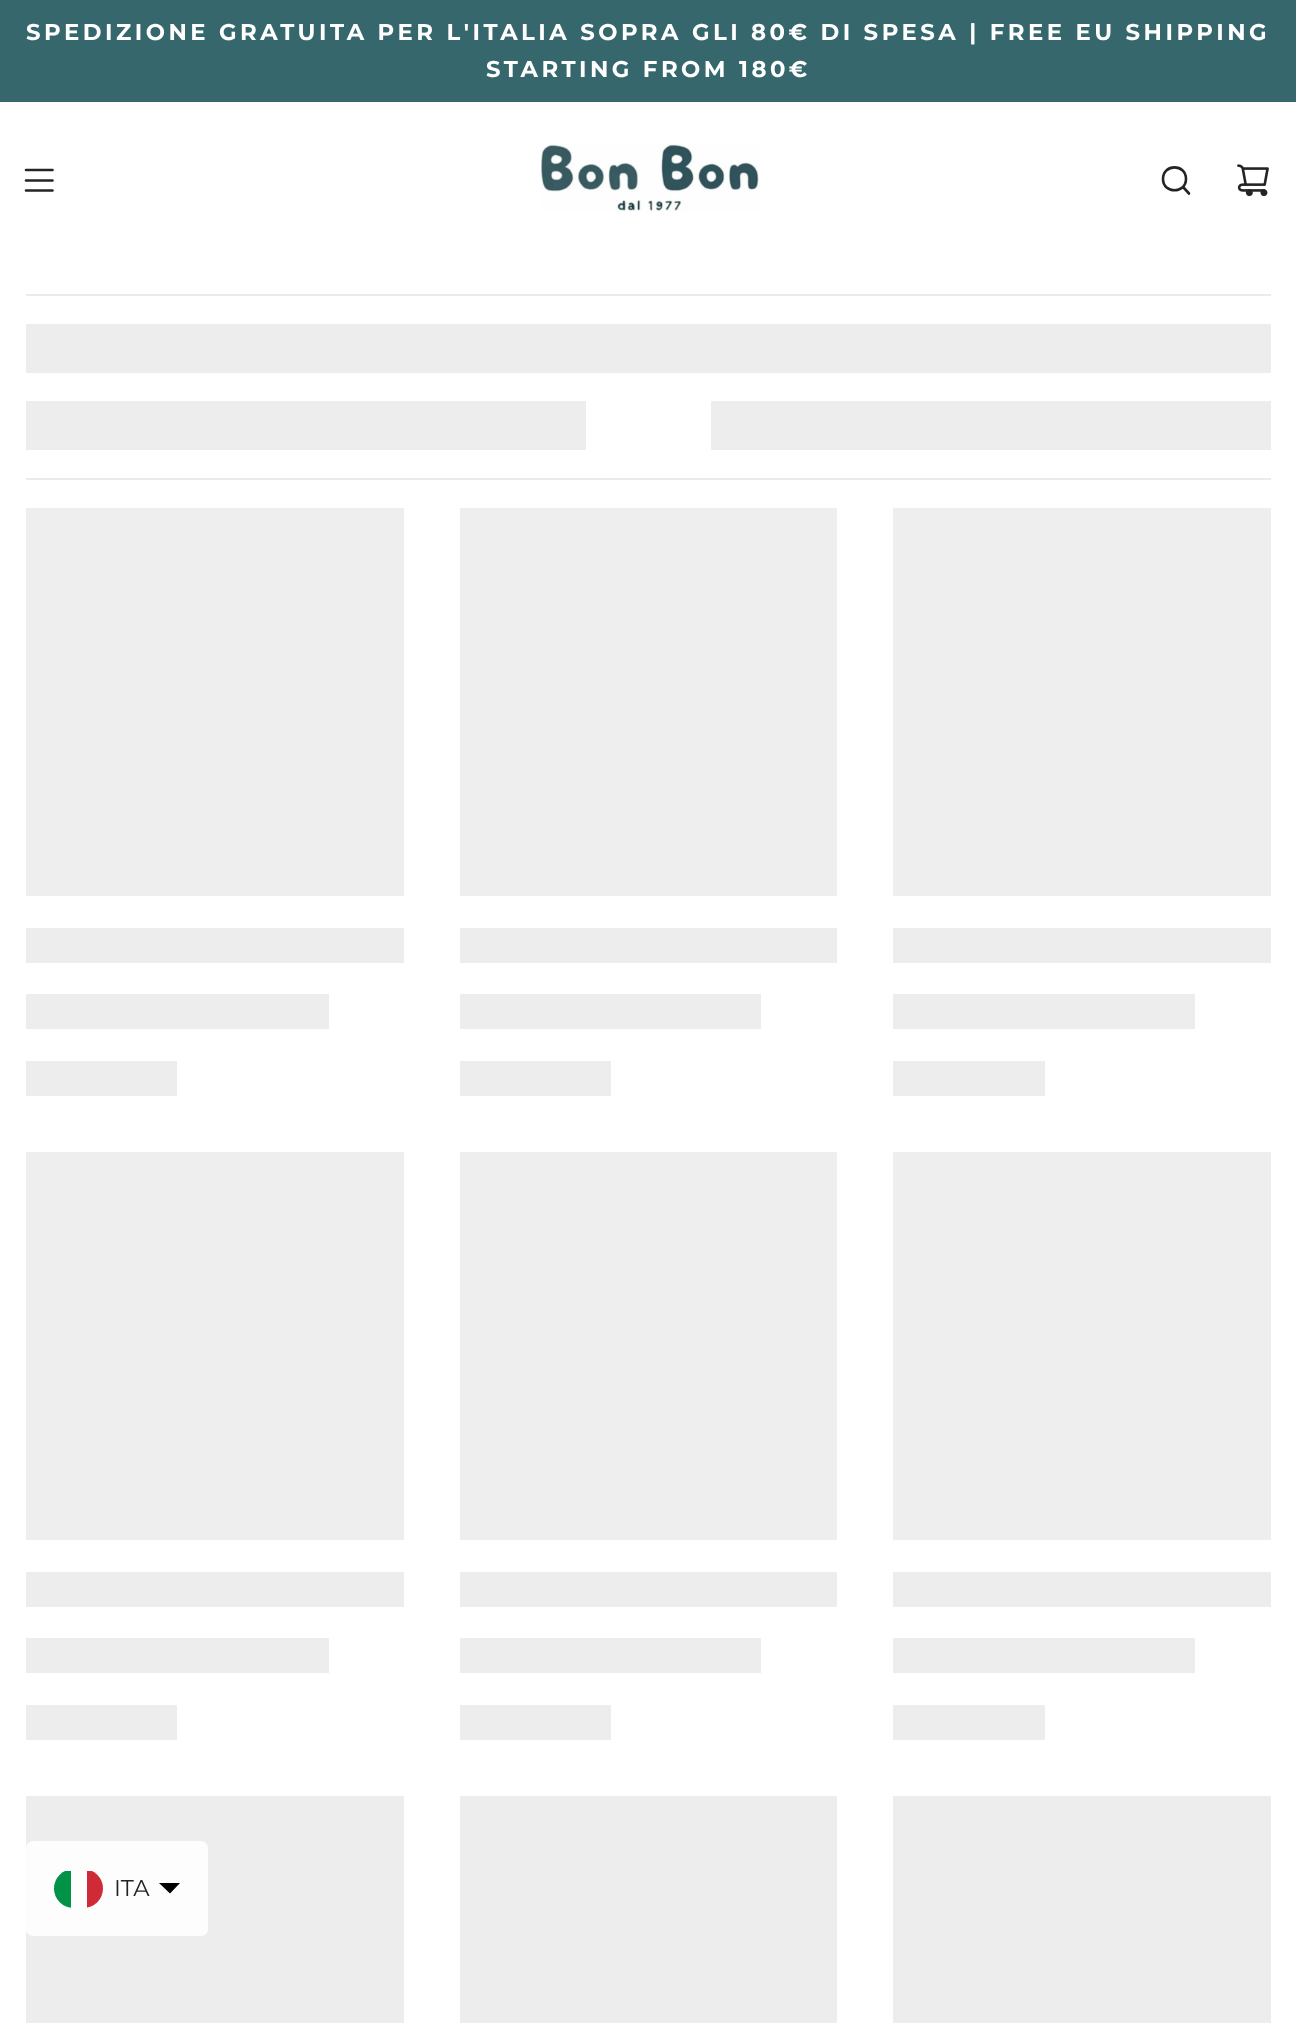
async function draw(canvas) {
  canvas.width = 1296;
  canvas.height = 2023;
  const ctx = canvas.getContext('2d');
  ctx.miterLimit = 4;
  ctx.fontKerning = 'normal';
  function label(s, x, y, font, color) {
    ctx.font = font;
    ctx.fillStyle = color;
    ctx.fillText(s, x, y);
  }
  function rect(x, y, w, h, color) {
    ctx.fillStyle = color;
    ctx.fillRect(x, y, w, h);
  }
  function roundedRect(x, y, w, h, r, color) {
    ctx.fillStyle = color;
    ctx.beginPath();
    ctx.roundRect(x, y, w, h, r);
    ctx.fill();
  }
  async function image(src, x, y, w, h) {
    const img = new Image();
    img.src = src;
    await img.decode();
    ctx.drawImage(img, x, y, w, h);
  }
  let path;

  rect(0, 0, 1296, 2023, '#fff');
  rect(0, 0, 1296, 102, '#36676c');
  ctx.letterSpacing = '3.5px';
  label('SPEDIZIONE GRATUITA PER L\'ITALIA SOPRA GLI 80€ DI SPESA | FREE EU SHIPPING', 26, 40, 'bold 22.75px Montserrat', '#fff');
  label('STARTING FROM 180€', 486, 77, 'bold 22.75px Montserrat', '#fff');
  path = new Path2D('M26 170H52.5M26 180.5H52.5M26 190.5H52.5');
  ctx.strokeStyle = '#242424';
  ctx.lineWidth = 2.6;
  ctx.lineCap = 'round';
  ctx.lineJoin = 'round';
  ctx.stroke(path);
  await image('assets/img1.png', 541, 144, 218, 68);
  path = new Path2D('M1183.5 187.5L1189 193.5M1163 179C1163 194 1186 194 1186 179C1186 163.5 1163 163.5 1163 179Z');
  ctx.stroke(path);
  await image('assets/img2.png', 1237, 164, 32, 33);
  rect(26, 294, 1245, 2, '#ebebeb');
  rect(26, 478, 1245, 2, '#ebebeb');
  rect(26, 324, 1245, 49, '#ededed');
  rect(26, 401, 560, 49, '#ededed');
  rect(711, 401, 560, 49, '#ededed');
  rect(26, 508, 378, 388, '#eee');
  rect(26, 928, 378, 35, '#ededed');
  rect(26, 994, 303, 35, '#ededed');
  rect(26, 1061, 151, 35, '#ededed');
  rect(460, 508, 377, 388, '#eee');
  rect(460, 928, 377, 35, '#ededed');
  rect(460, 994, 301, 35, '#ededed');
  rect(460, 1061, 151, 35, '#ededed');
  rect(893, 508, 378, 388, '#eee');
  rect(893, 928, 378, 35, '#ededed');
  rect(893, 994, 302, 35, '#ededed');
  rect(893, 1061, 152, 35, '#ededed');
  rect(26, 1152, 378, 388, '#eee');
  rect(26, 1572, 378, 35, '#ededed');
  rect(26, 1638, 303, 35, '#ededed');
  rect(26, 1705, 151, 35, '#ededed');
  rect(460, 1152, 377, 388, '#eee');
  rect(460, 1572, 377, 35, '#ededed');
  rect(460, 1638, 301, 35, '#ededed');
  rect(460, 1705, 151, 35, '#ededed');
  rect(893, 1152, 378, 388, '#eee');
  rect(893, 1572, 378, 35, '#ededed');
  rect(893, 1638, 302, 35, '#ededed');
  rect(893, 1705, 152, 35, '#ededed');
  rect(26, 1796, 378, 227, '#ededed');
  rect(460, 1796, 377, 227, '#ededed');
  rect(893, 1796, 378, 227, '#ededed');
  roundedRect(26, 1841, 182, 95, 7, '#fdfdfd');
  ctx.save();
  ctx.beginPath();
  ctx.roundRect(54, 1869, 49, 39, 19.5);
  ctx.clip();
  rect(54, 1871, 17, 37, '#009246');
  rect(87, 1871, 16, 37, '#ce2b37');
  ctx.restore();
  ctx.letterSpacing = '0px';
  label('ITA', 114, 1896, '22.75px Montserrat', '#202223');
  ctx.fillStyle = '#000';
  path = new Path2D('M159 1883H180L170 1893.5Z');
  ctx.fill(path);
}

draw(document.querySelector('canvas'));
